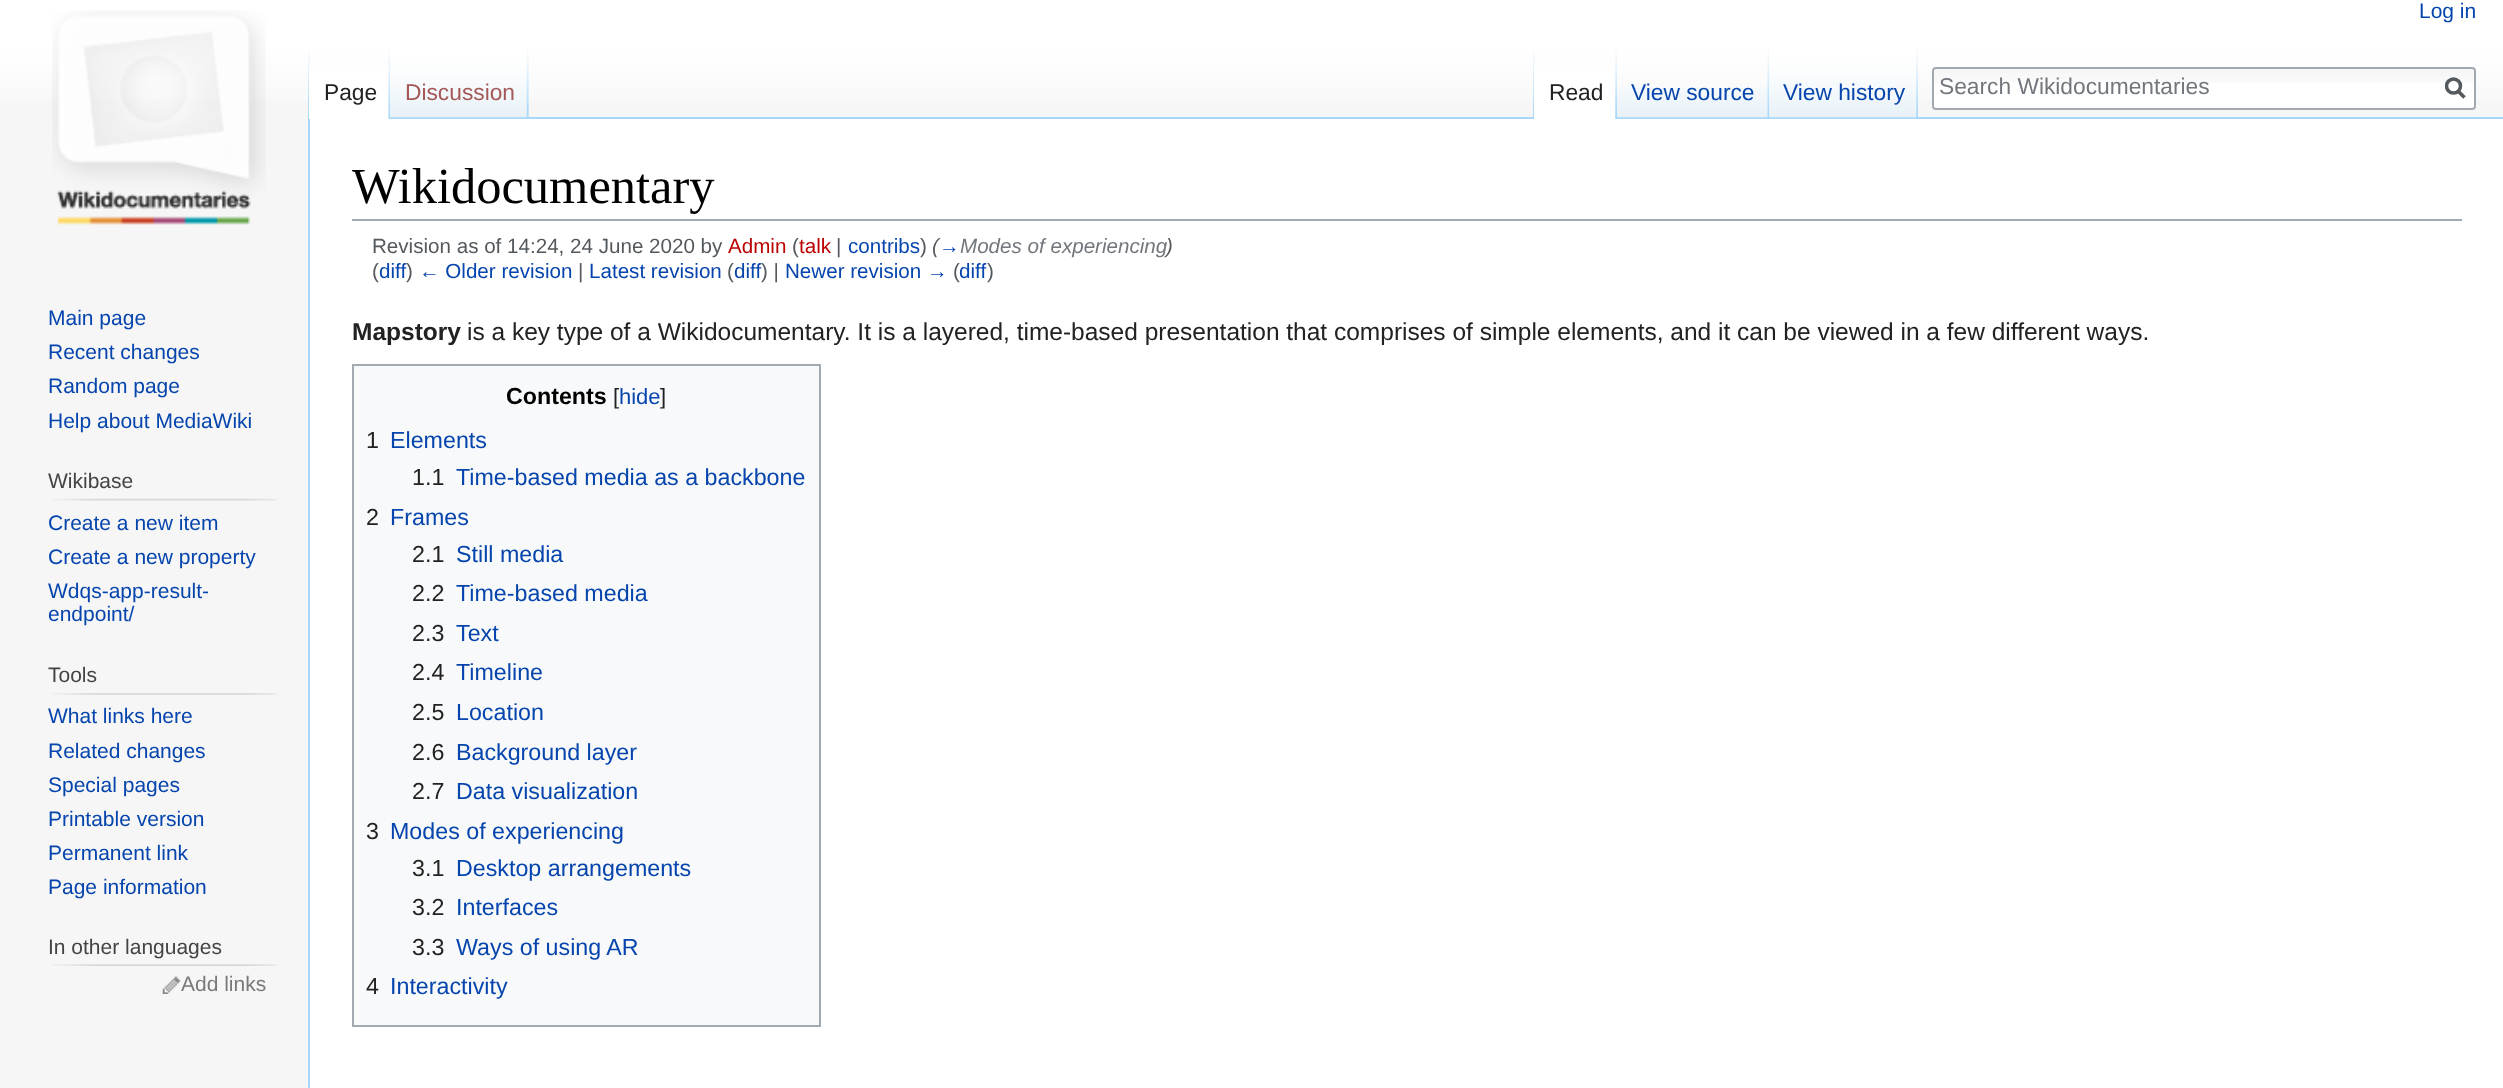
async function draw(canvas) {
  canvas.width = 2503;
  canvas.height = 1088;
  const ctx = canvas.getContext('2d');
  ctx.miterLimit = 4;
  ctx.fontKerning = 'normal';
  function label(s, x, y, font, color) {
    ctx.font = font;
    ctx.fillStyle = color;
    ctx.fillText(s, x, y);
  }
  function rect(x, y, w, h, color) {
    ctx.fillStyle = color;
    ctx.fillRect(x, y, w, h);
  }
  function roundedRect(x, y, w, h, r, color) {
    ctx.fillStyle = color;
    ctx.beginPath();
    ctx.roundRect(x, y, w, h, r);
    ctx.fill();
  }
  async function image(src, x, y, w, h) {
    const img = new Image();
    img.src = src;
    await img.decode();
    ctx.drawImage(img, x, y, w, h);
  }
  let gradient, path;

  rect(0, 0, 2503, 1088, '#f6f6f6');
  gradient = ctx.createLinearGradient(1252, -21, 1252, 119);
  gradient.addColorStop(0.5, '#fff');
  gradient.addColorStop(1, '#f6f6f6');
  ctx.fillStyle = gradient;
  ctx.fillRect(0, 0, 2503, 100);
  label('Log in', 2419, 18, '21px Liberation Sans', '#0645ad');
  await image('assets/img1.png', 308, 49, 2, 68);
  await image('assets/img2.png', 528, 49, 1, 68);
  rect(308, 117, 2, 971, '#a7d7f9');
  rect(309, 65, 82, 54, '#fff');
  await image('assets/img3.png', 388, 49, 3, 70);
  label('Page', 324, 100, '22.75px Liberation Sans', '#222');
  rect(528, 117, 1975, 2, '#a7d7f9');
  await image('assets/img4.png', 390, 49, 139, 70);
  await image('assets/img5.png', 526, 49, 3, 69);
  label('Discussion', 405, 100, '22.75px Liberation Sans', '#a55858');
  await image('assets/img1.png', 1533, 49, 2, 68);
  rect(1534, 65, 82, 54, '#fff');
  await image('assets/img6.png', 1615, 49, 2, 70);
  label('Read', 1549, 100, '22.75px Liberation Sans', '#222');
  await image('assets/img7.png', 1617, 87, 153, 31);
  await image('assets/img8.png', 1767, 49, 3, 69);
  label('View source', 1631, 100, '22.75px Liberation Sans', '#0645ad');
  await image('assets/img9.png', 1769, 49, 148, 69);
  await image('assets/img10.png', 1916, 49, 2, 69);
  label('View history', 1783, 100, '22.75px Liberation Sans', '#0645ad');
  roundedRect(1932, 67, 544, 43, 4, '#fff');
  await image('assets/img11.png', 1932, 68, 544, 15);
  ctx.beginPath();
  ctx.roundRect(1933, 68, 542, 41, 3);
  ctx.strokeStyle = '#a2a9b1';
  ctx.lineWidth = 2;
  ctx.stroke();
  label('Search Wikidocumentaries', 1939, 94, '22.75px Liberation Sans', '#72777d');
  path = new Path2D('M2464.5 97.5L2457.5 90.5');
  ctx.strokeStyle = '#54595d';
  ctx.lineWidth = 3.5;
  ctx.stroke(path);
  ctx.save();
  ctx.beginPath();
  ctx.rect(2445, 77, 21, 23);
  ctx.clip();
  ctx.beginPath();
  ctx.arc(2453.5, 86, 7, 0, 2 * Math.PI);
  ctx.stroke();
  ctx.restore();
  await image('assets/img12.png', 52, 10, 214, 215);
  label('Main page', 48, 325, '21px Liberation Sans', '#0645ad');
  label('Recent changes', 48, 359, '21px Liberation Sans', '#0645ad');
  label('Random page', 48, 393, '21px Liberation Sans', '#0645ad');
  label('Help about MediaWiki', 48, 428, '21px Liberation Sans', '#0645ad');
  label('Wikibase', 48, 488, '21px Liberation Sans', '#444');
  await image('assets/img13.png', 52, 498, 225, 3);
  label('Create a new item', 48, 530, '21px Liberation Sans', '#0645ad');
  label('Create a new property', 48, 564, '21px Liberation Sans', '#0645ad');
  label('Wdqs-app-result-', 48, 598, '21px Liberation Sans', '#0645ad');
  label('endpoint/', 48, 621, '21px Liberation Sans', '#0645ad');
  label('Tools', 48, 682, '21px Liberation Sans', '#444');
  await image('assets/img14.png', 52, 693, 225, 2);
  label('What links here', 48, 723, '21px Liberation Sans', '#0645ad');
  label('Related changes', 48, 758, '21px Liberation Sans', '#0645ad');
  label('Special pages', 48, 792, '21px Liberation Sans', '#0645ad');
  label('Printable version', 48, 826, '21px Liberation Sans', '#0645ad');
  label('Permanent link', 48, 860, '21px Liberation Sans', '#0645ad');
  label('Page information', 48, 894, '21px Liberation Sans', '#0645ad');
  label('In other languages', 48, 954, '21px Liberation Sans', '#444');
  await image('assets/img15.png', 52, 964, 225, 2);
  await image('assets/img16.png', 162, 976, 19, 18);
  label('Add links', 181, 991, '21px Liberation Sans', '#797979');
  rect(310, 119, 2193, 969, '#fff');
  rect(352, 219, 2110, 2, '#a2a9b1');
  label('Wikidocumentary', 352, 203, '50.5px Liberation Serif', '#000');
  label('Revision as of 14:24, 24 June 2020 by', 372, 253, '20.6px Liberation Sans', '#54595d');
  label('Admin', 728, 253, '20.6px Liberation Sans', '#ba0000');
  label('(', 792, 253, '20.6px Liberation Sans', '#54595d');
  label('talk', 799, 253, '20.6px Liberation Sans', '#ba0000');
  label('|', 836, 253, '20.6px Liberation Sans', '#54595d');
  label('contribs', 848, 253, '20.6px Liberation Sans', '#0645ad');
  label(')', 920, 253, '20.6px Liberation Sans', '#54595d');
  label('(', 932, 253, 'italic 20.6px Liberation Sans', '#54595d');
  label('→', 939, 253, 'italic 20.6px Liberation Sans', '#0645ad');
  label('Modes of experiencing', 960, 253, 'italic 20.6px Liberation Sans', '#72777d');
  label(')', 1166, 253, 'italic 20.6px Liberation Sans', '#54595d');
  label('(', 372, 278, '20.6px Liberation Sans', '#54595d');
  label('diff', 379, 278, '20.6px Liberation Sans', '#0645ad');
  label(')', 406, 278, '20.6px Liberation Sans', '#54595d');
  label('← Older revision', 419, 278, '20.6px Liberation Sans', '#0645ad');
  label('|', 578, 278, '20.6px Liberation Sans', '#54595d');
  label('Latest revision', 589, 278, '20.6px Liberation Sans', '#0645ad');
  label('(', 727, 278, '20.6px Liberation Sans', '#54595d');
  label('diff', 734, 278, '20.6px Liberation Sans', '#0645ad');
  label(') |', 761, 278, '20.6px Liberation Sans', '#54595d');
  label('Newer revision →', 785, 278, '20.6px Liberation Sans', '#0645ad');
  label('(', 953, 278, '20.6px Liberation Sans', '#54595d');
  label('diff', 959, 278, '20.6px Liberation Sans', '#0645ad');
  label(')', 987, 278, '20.6px Liberation Sans', '#54595d');
  label('Mapstory', 352, 340, 'bold 24.5px Liberation Sans', '#222');
  label('is a key type of a Wikidocumentary. It is a layered, time-based presentation that comprises of simple elements, and it can be viewed in a few different ways.', 467, 340, '24.5px Liberation Sans', '#222');
  ctx.fillStyle = '#f8f9fa';
  ctx.beginPath();
  ctx.rect(353, 365, 467, 661);
  ctx.fill();
  ctx.strokeStyle = '#a2a9b1';
  ctx.lineWidth = 2;
  ctx.stroke();
  label('Contents', 506, 404, 'bold 23.25px Liberation Sans', '#000');
  label('[', 613, 404, '22px Liberation Sans', '#222');
  label('hide', 619, 404, '22px Liberation Sans', '#0645ad');
  label(']', 660, 404, '22px Liberation Sans', '#222');
  label('1', 366, 448, '23.25px Liberation Sans', '#222');
  label('Elements', 390, 448, '23.25px Liberation Sans', '#0645ad');
  label('1.1', 412, 485, '23.25px Liberation Sans', '#222');
  label('Time-based media as a backbone', 456, 485, '23.25px Liberation Sans', '#0645ad');
  label('2', 366, 525, '23.25px Liberation Sans', '#222');
  label('Frames', 390, 525, '23.25px Liberation Sans', '#0645ad');
  label('2.1', 412, 562, '23.25px Liberation Sans', '#222');
  label('Still media', 456, 562, '23.25px Liberation Sans', '#0645ad');
  label('2.2', 412, 601, '23.25px Liberation Sans', '#222');
  label('Time-based media', 456, 601, '23.25px Liberation Sans', '#0645ad');
  label('2.3', 412, 641, '23.25px Liberation Sans', '#222');
  label('Text', 456, 641, '23.25px Liberation Sans', '#0645ad');
  label('2.4', 412, 680, '23.25px Liberation Sans', '#222');
  label('Timeline', 456, 680, '23.25px Liberation Sans', '#0645ad');
  label('2.5', 412, 720, '23.25px Liberation Sans', '#222');
  label('Location', 456, 720, '23.25px Liberation Sans', '#0645ad');
  label('2.6', 412, 760, '23.25px Liberation Sans', '#222');
  label('Background layer', 456, 760, '23.25px Liberation Sans', '#0645ad');
  label('2.7', 412, 799, '23.25px Liberation Sans', '#222');
  label('Data visualization', 456, 799, '23.25px Liberation Sans', '#0645ad');
  label('3', 366, 839, '23.25px Liberation Sans', '#222');
  label('Modes of experiencing', 390, 839, '23.25px Liberation Sans', '#0645ad');
  label('3.1', 412, 876, '23.25px Liberation Sans', '#222');
  label('Desktop arrangements', 456, 876, '23.25px Liberation Sans', '#0645ad');
  label('3.2', 412, 915, '23.25px Liberation Sans', '#222');
  label('Interfaces', 456, 915, '23.25px Liberation Sans', '#0645ad');
  label('3.3', 412, 955, '23.25px Liberation Sans', '#222');
  label('Ways of using AR', 456, 955, '23.25px Liberation Sans', '#0645ad');
  label('4', 366, 994, '23.25px Liberation Sans', '#222');
  label('Interactivity', 390, 994, '23.25px Liberation Sans', '#0645ad');
}

draw(document.querySelector('canvas'));
